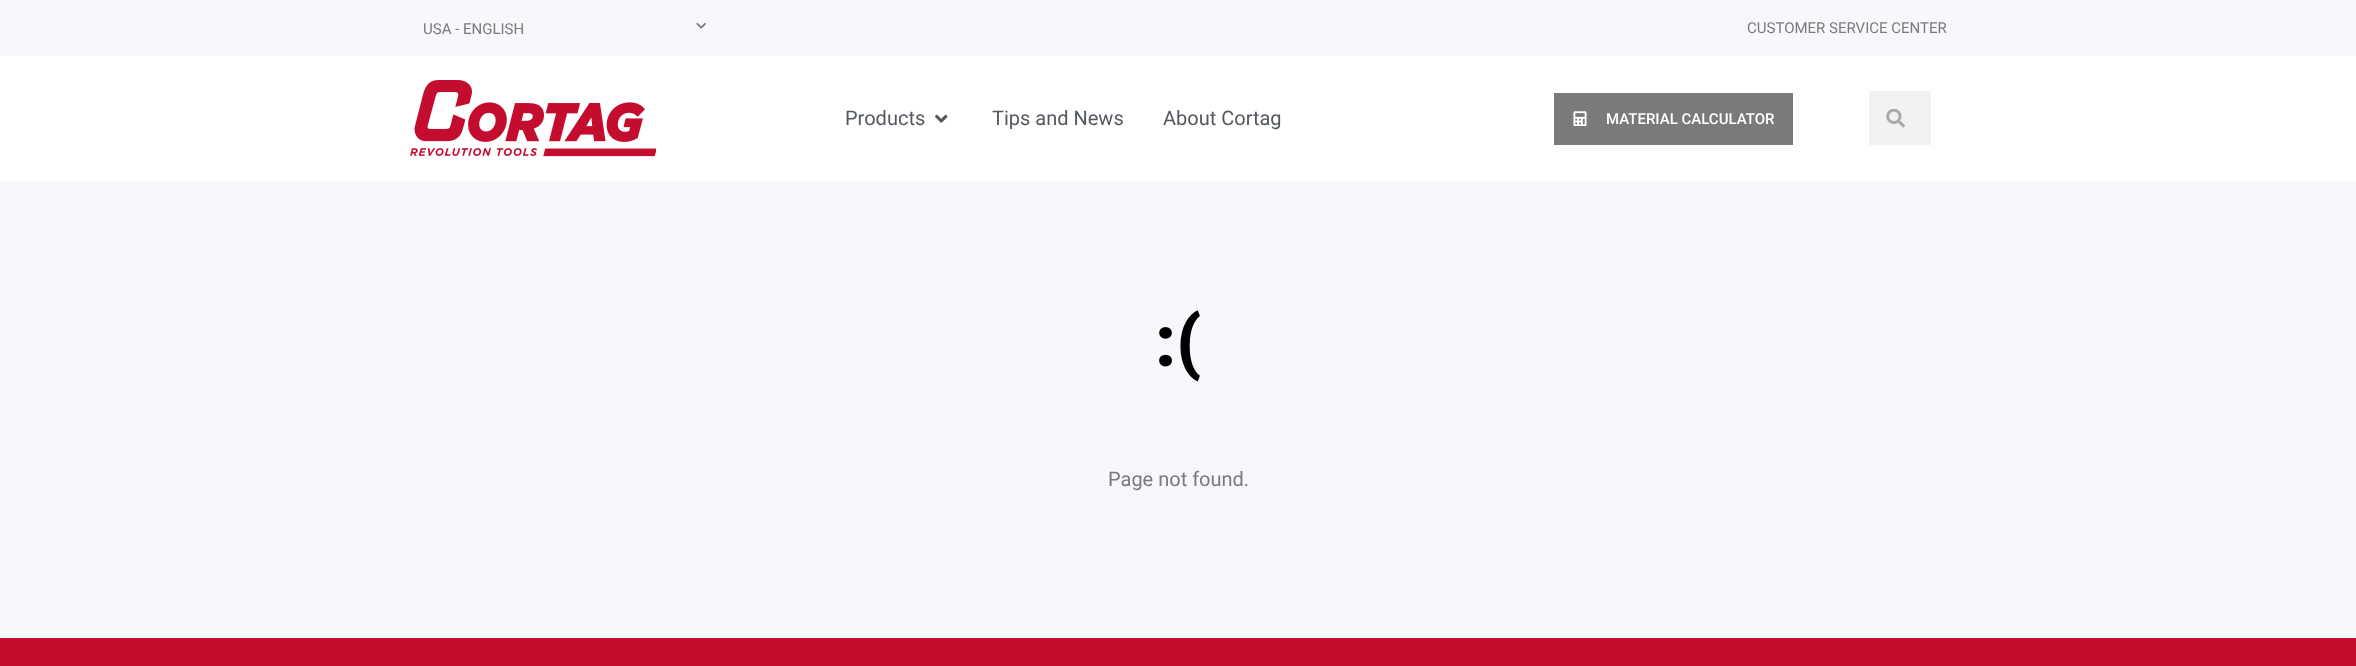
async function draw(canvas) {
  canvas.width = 2356;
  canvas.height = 666;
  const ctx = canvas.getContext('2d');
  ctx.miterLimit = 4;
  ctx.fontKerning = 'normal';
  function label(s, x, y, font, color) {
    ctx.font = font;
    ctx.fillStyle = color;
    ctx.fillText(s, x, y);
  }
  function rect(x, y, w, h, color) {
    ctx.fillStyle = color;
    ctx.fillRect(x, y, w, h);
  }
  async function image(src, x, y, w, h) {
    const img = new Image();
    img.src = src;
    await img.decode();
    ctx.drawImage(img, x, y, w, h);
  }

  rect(0, 0, 2356, 666, '#f6f8fb');
  label('USA - ENGLISH', 423, 34, '15px Roboto', '#7a7a7a');
  await image('assets/img1.png', 696, 22, 10, 7);
  label('CUSTOMER SERVICE CENTER', 1747, 33, '15px Roboto', '#7a7a7a');
  rect(0, 56, 2356, 125, '#fff');
  await image('assets/img2.png', 410, 80, 246, 77);
  label('Products', 845, 125, '20px Roboto', '#54595f');
  await image('assets/img3.png', 935, 114, 13, 9);
  label('Tips and News', 992, 125, '20px Roboto', '#54595f');
  label('About Cortag', 1163, 125, '20px Roboto', '#54595f');
  rect(1554, 93, 239, 52, '#7a7a7a');
  await image('assets/img4.png', 1573, 111, 14, 15);
  label('MATERIAL CALCULATOR', 1606, 124, '500 15px Roboto', '#fff');
  rect(1869, 91, 62, 54, '#f1f2f3');
  await image('assets/img5.png', 1886, 109, 19, 19);
  label(':(', 1155, 366, '900 71px Roboto', '#000');
  label('Page not found.', 1108, 486, '20px Roboto', '#7a7a7a');
  rect(0, 638, 2356, 28, '#c40c2e');
}

draw(document.querySelector('canvas'));
